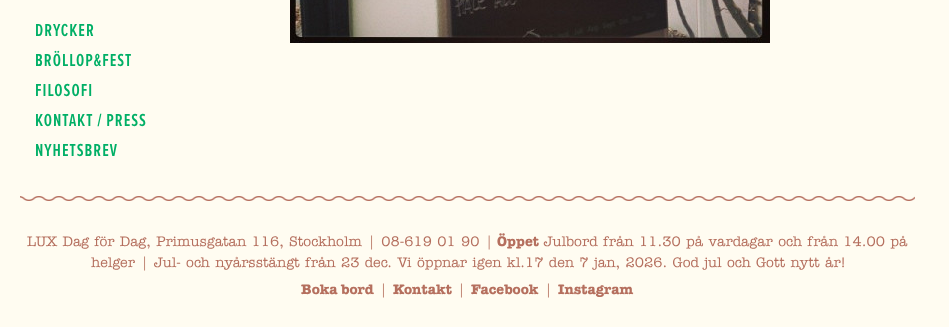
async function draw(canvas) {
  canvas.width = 949;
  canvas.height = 327;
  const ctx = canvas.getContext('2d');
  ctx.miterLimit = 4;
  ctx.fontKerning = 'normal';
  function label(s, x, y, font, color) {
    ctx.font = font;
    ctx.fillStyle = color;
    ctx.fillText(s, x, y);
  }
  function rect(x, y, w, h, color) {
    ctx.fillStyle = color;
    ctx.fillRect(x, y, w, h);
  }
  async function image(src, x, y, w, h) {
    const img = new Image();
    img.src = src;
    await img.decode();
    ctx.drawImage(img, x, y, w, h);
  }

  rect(0, 0, 949, 327, '#fffcf1');
  ctx.letterSpacing = '1px';
  label('DRYCKER', 35, 36, '600 18px "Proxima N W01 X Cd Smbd"', '#00af66');
  label('BRÖLLOP&FEST', 35, 66, '600 18px "Proxima N W01 X Cd Smbd"', '#00af66');
  label('FILOSOFI', 35, 96, '600 18px "Proxima N W01 X Cd Smbd"', '#00af66');
  label('KONTAKT / PRESS', 35, 126, '600 18px "Proxima N W01 X Cd Smbd"', '#00af66');
  label('NYHETSBREV', 35, 156, '600 18px "Proxima N W01 X Cd Smbd"', '#00af66');
  await image('assets/img1.png', 290, 0, 480, 43);
  await image('assets/img2.png', 20, 196, 895, 5);
  ctx.letterSpacing = '0px';
  label('LUX Dag för Dag, Primusgatan 116, Stockholm | 08-619 01 90 |', 27, 246, '500 14px "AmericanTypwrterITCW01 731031"', '#b56f5e');
  label('Öppet', 497, 246, 'bold 14px "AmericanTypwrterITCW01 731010"', '#b56f5e');
  label('Julbord från 11.30 på vardagar och från 14.00 på', 544, 246, '500 14px "AmericanTypwrterITCW01 731031"', '#b56f5e');
  label('helger | Jul- och nyårsstängt från 23 dec. Vi öppnar igen kl.17 den 7 jan, 2026. God jul och Gott nytt år!', 91, 267, '500 14px "AmericanTypwrterITCW01 731031"', '#b56f5e');
  label('Boka bord', 301, 294, 'bold 14px "AmericanTypwrterITCW01 731010"', '#b56f5e');
  label('|', 379, 294, '500 14px "AmericanTypwrterITCW01 731031"', '#b56f5e');
  label('Kontakt', 393, 294, 'bold 14px "AmericanTypwrterITCW01 731010"', '#b56f5e');
  label('|', 457, 294, '500 14px "AmericanTypwrterITCW01 731031"', '#b56f5e');
  label('Facebook', 471, 294, 'bold 14px "AmericanTypwrterITCW01 731010"', '#b56f5e');
  label('|', 544, 294, '500 14px "AmericanTypwrterITCW01 731031"', '#b56f5e');
  label('Instagram', 558, 294, 'bold 14px "AmericanTypwrterITCW01 731010"', '#b56f5e');
}

draw(document.querySelector('canvas'));
